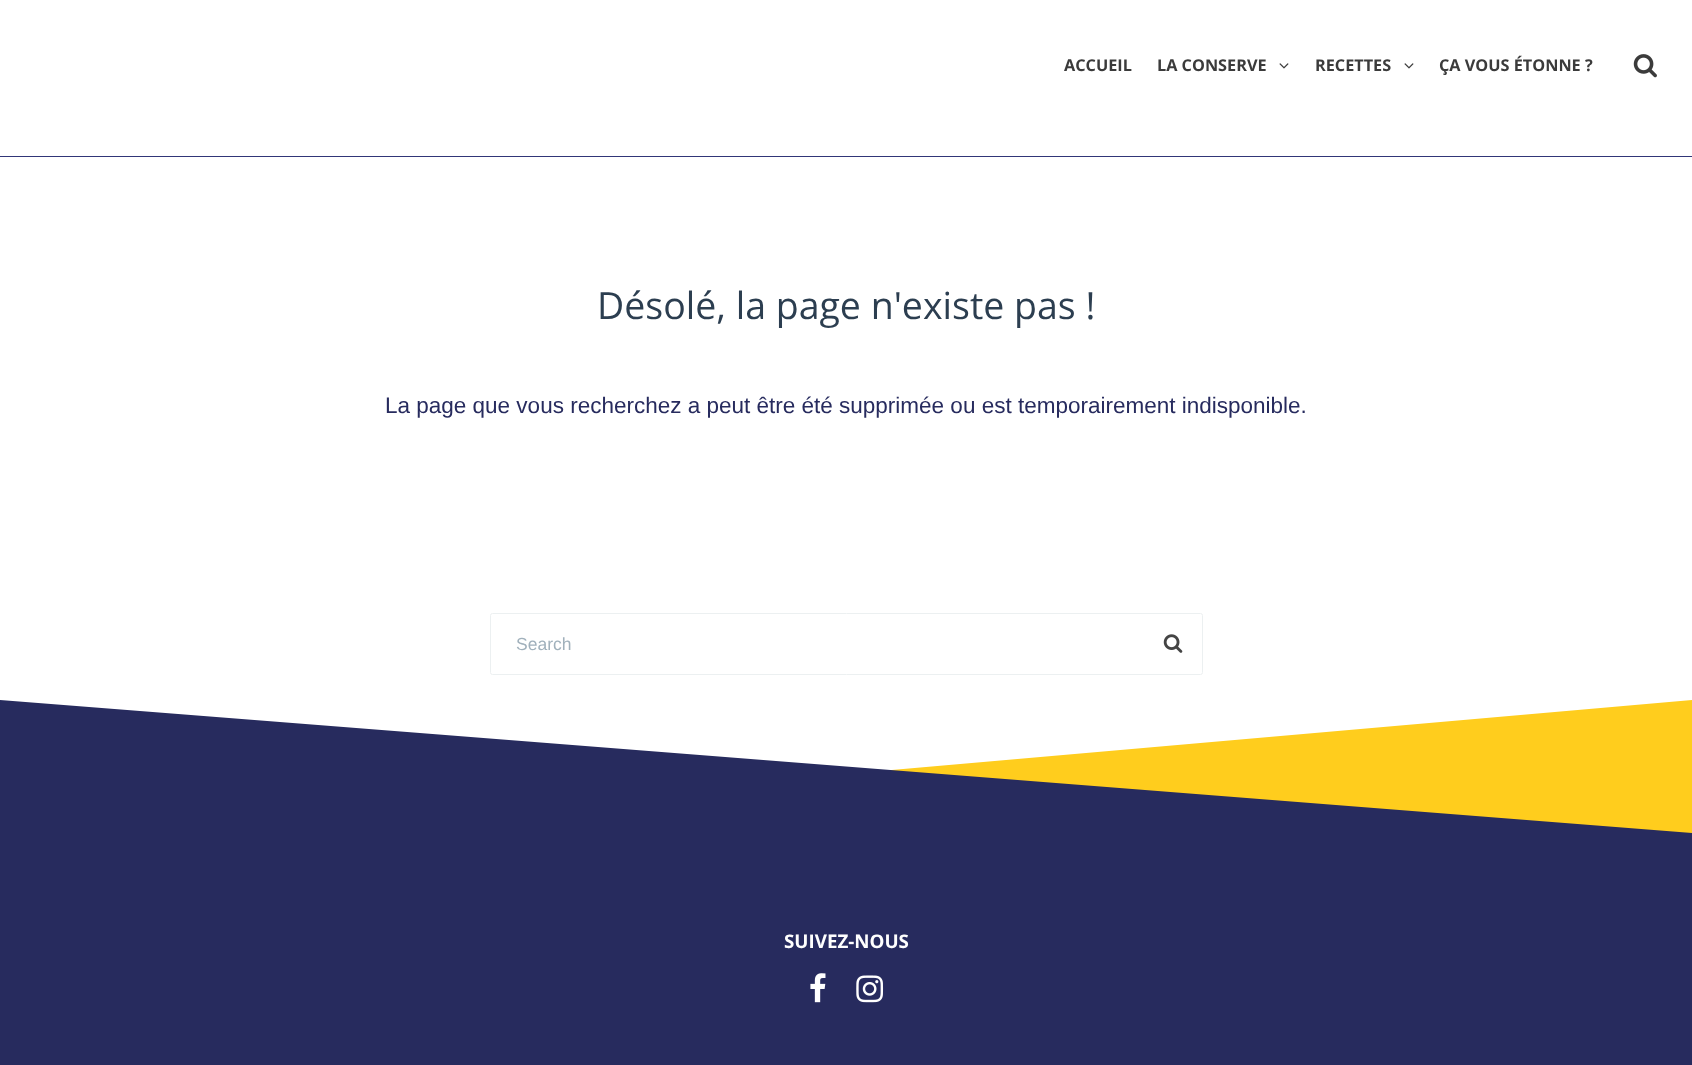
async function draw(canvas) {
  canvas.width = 1692;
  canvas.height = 1065;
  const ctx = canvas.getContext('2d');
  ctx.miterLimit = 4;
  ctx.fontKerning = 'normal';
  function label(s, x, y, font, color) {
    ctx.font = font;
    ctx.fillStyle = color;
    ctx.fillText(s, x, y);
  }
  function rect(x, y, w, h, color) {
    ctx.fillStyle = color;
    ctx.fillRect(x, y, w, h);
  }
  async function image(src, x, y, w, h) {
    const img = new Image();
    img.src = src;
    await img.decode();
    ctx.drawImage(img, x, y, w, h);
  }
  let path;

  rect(0, 0, 1692, 1065, '#fff');
  label('ACCUEIL', 1064, 71, 'bold 16.25px Open Sans', '#3b3b3b');
  label('LA CONSERVE', 1157, 71, 'bold 16.25px Open Sans', '#3b3b3b');
  await image('assets/img1.png', 1279, 63, 10, 6);
  label('RECETTES', 1315, 71, 'bold 16.25px Open Sans', '#3b3b3b');
  await image('assets/img1.png', 1404, 63, 10, 6);
  label('ÇA VOUS ÉTONNE ?', 1439, 71, 'bold 16.25px Open Sans', '#3b3b3b');
  await image('assets/img2.png', 1633, 54, 24, 24);
  rect(0, 156, 1692, 1, '#313678');
  label('Désolé, la page n\'existe pas !', 597, 319, '37.5px Open Sans', '#2c3e50');
  label('La page que vous recherchez a peut être été supprimée ou est temporairement indisponible.', 385, 413, '22.5px Liberation Sans', '#272b5e');
  ctx.beginPath();
  ctx.roundRect(490.5, 613.5, 712, 61, 2);
  ctx.strokeStyle = '#ecf0f1';
  ctx.stroke();
  label('Search', 516, 650, '17.5px Liberation Sans', '#a1b1bc');
  await image('assets/img3.png', 1163, 634, 20, 19);
  ctx.save();
  ctx.beginPath();
  ctx.rect(0, 700, 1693, 225);
  ctx.clip();
  ctx.fillStyle = '#ffcd1d';
  path = new Path2D('M0 848L1692 700V925L0 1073Z');
  ctx.fill(path);
  ctx.fillStyle = '#272b5e';
  path = new Path2D('M0 700L1692 833V1058L0 925Z');
  ctx.fill(path);
  ctx.restore();
  rect(0, 925, 1692, 140, '#272b5e');
  label('SUIVEZ-NOUS', 784, 948, 'bold 18.75px Open Sans', '#fff');
  await image('assets/img4.png', 810, 973, 16, 30);
  await image('assets/img5.png', 856, 975, 28, 28);
}

draw(document.querySelector('canvas'));
